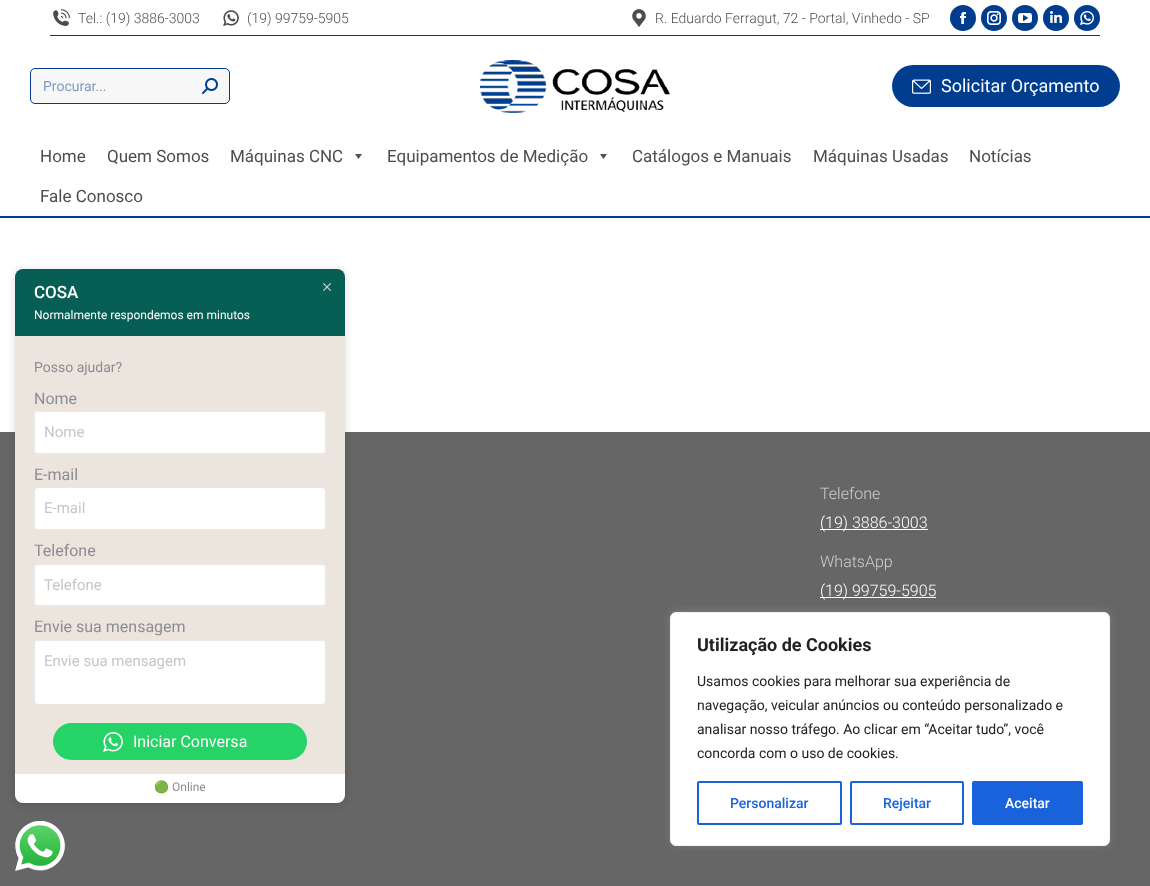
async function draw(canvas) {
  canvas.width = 1150;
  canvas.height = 886;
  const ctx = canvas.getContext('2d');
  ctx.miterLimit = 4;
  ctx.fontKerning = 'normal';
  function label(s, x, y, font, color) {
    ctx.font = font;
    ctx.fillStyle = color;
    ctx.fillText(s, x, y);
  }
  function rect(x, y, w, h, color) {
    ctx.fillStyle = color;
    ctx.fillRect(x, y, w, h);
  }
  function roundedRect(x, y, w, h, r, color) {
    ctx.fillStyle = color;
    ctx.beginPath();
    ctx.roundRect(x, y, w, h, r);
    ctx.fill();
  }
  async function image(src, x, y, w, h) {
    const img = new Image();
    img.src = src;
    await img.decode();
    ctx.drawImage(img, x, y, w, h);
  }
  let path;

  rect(0, 0, 1150, 886, '#666');
  rect(0, 0, 1150, 432, '#fff');
  rect(0, 216, 1150, 2, '#003d8f');
  await image('assets/img1.png', 53, 9, 17, 17);
  label('Tel.: (19) 3886-3003', 78, 23, '300 14px Roboto', '#4d4d4d');
  await image('assets/img2.png', 223, 10, 16, 16);
  label('(19) 99759-5905', 247, 23, '300 14px Roboto', '#4d4d4d');
  await image('assets/img3.png', 632, 9, 14, 18);
  label('R. Eduardo Ferragut, 72 - Portal, Vinhedo - SP', 655, 23, '300 14px Roboto', '#4d4d4d');
  ctx.fillStyle = '#003d8f';
  ctx.beginPath();
  ctx.arc(963, 18, 13, 0, 2 * Math.PI);
  ctx.fill();
  await image('assets/img4.png', 960, 12, 6, 12);
  ctx.beginPath();
  ctx.arc(994, 18, 13, 0, 2 * Math.PI);
  ctx.fill();
  await image('assets/img5.png', 987, 11, 14, 14);
  ctx.beginPath();
  ctx.arc(1025, 18, 13, 0, 2 * Math.PI);
  ctx.fill();
  await image('assets/img6.png', 1018, 13, 14, 10);
  ctx.beginPath();
  ctx.arc(1056, 18, 13, 0, 2 * Math.PI);
  ctx.fill();
  await image('assets/img7.png', 1050, 11, 12, 12);
  ctx.beginPath();
  ctx.arc(1087, 18, 13, 0, 2 * Math.PI);
  ctx.fill();
  await image('assets/img8.png', 1080, 11, 14, 14);
  rect(50, 35, 1050, 1, '#003d8f');
  ctx.fillStyle = '#f7f7f7';
  ctx.beginPath();
  ctx.roundRect(30.5, 68.5, 199, 35, 4.5);
  ctx.fill();
  ctx.strokeStyle = '#003d8f';
  ctx.stroke();
  label('Procurar...', 43, 91, '14px Roboto', '#7c9ac3');
  await image('assets/img9.png', 202, 78, 16, 16);
  await image('assets/img10.png', 480, 60, 190, 53);
  roundedRect(892, 65, 228, 42, 21, '#003d8f');
  await image('assets/img11.png', 912, 79, 19, 15);
  label('Solicitar Orçamento', 941, 92, '18px Roboto', '#fff');
  label('Home', 40, 162, '17px Roboto', '#4d4d4d');
  label('Quem Somos', 107, 162, '17px Roboto', '#4d4d4d');
  label('Máquinas CNC', 230, 162, '17px Roboto', '#4d4d4d');
  ctx.fillStyle = '#515151';
  path = new Path2D('M362 154L358.5 159L355 154Z');
  ctx.fill(path);
  label('Equipamentos de Medição', 387, 162, '17px Roboto', '#4d4d4d');
  ctx.fillStyle = '#515151';
  path = new Path2D('M607 154L603.5 159L600 154Z');
  ctx.fill(path);
  label('Catálogos e Manuais', 632, 162, '17px Roboto', '#4d4d4d');
  label('Máquinas Usadas', 813, 162, '17px Roboto', '#4d4d4d');
  label('Notícias', 969, 162, '17px Roboto', '#4d4d4d');
  label('Fale Conosco', 40, 202, '17px Roboto', '#4d4d4d');
  label('Telefone', 820, 499, '300 16px Roboto', '#cecece');
  rect(820, 529, 108, 1, '#fff');
  label('(19) 3886-3003', 820, 528, '300 16px Roboto', '#fff');
  label('WhatsApp', 820, 567, '300 16px Roboto', '#cecece');
  rect(820, 597, 116, 1, '#fff');
  label('(19) 99759-5905', 820, 596, '300 16px Roboto', '#fff');
  ctx.fillStyle = '#00000024';
  ctx.filter = 'blur(4.5px)';
  ctx.beginPath();
  ctx.roundRect(15, 270, 330, 534, 8);
  ctx.fill();
  ctx.filter = 'none';
  ctx.fillStyle = '#075e54';
  ctx.beginPath();
  ctx.roundRect(15, 269, 330, 68, [8, 8, 0, 0]);
  ctx.fill();
  label('COSA', 34, 298, '500 17px Roboto', '#fff');
  label('Normalmente respondemos em minutos', 34, 319, '12px Roboto', '#fff');
  ctx.beginPath();
  ctx.roundRect(15, 773, 330, 30, [0, 0, 8, 8]);
  ctx.fill();
  rect(15, 336, 330, 438, '#ece5dd');
  label('Posso ajudar?', 34, 372, '14px Roboto', '#8b8d94');
  label('Nome', 34, 404, '16px Roboto', '#8b8d94');
  roundedRect(34, 411, 292, 43, 4, '#fff');
  ctx.beginPath();
  ctx.roundRect(34.5, 411.5, 291, 42, 3.5);
  ctx.strokeStyle = '#3333331c';
  ctx.stroke();
  label('Nome', 44, 437, '15px Roboto', '#c5c6ca');
  label('E-mail', 34, 480, '16px Roboto', '#8b8d94');
  roundedRect(34, 487, 292, 43, 4, '#fff');
  ctx.beginPath();
  ctx.roundRect(34.5, 487.5, 291, 42, 3.5);
  ctx.stroke();
  label('E-mail', 44, 513, '15px Roboto', '#c5c6ca');
  label('Telefone', 34, 556, '16px Roboto', '#8b8d94');
  roundedRect(34, 564, 292, 42, 4, '#fff');
  ctx.beginPath();
  ctx.roundRect(34.5, 564.5, 291, 41, 3.5);
  ctx.stroke();
  label('Telefone', 44, 590, '15px Roboto', '#c5c6ca');
  label('Envie sua mensagem', 34, 632, '16px Roboto', '#8b8d94');
  roundedRect(34, 640, 292, 65, 4, '#fff');
  ctx.beginPath();
  ctx.roundRect(34.5, 640.5, 291, 64, 3.5);
  ctx.stroke();
  label('Envie sua mensagem', 44, 666, '15px Roboto', '#c5c6ca');
  roundedRect(53, 723, 254, 37, 18.5, '#25d366');
  await image('assets/img12.png', 103, 732, 20, 20);
  label('Iniciar Conversa', 133, 747, '16px Roboto', '#fff');
  label('🟢', 154, 791, '12px Noto Color Emoji', '#8b8d94');
  label('Online', 172, 791, '12px Roboto', '#8b8d94');
  await image('assets/img13.png', 323, 283, 8, 8);
  await image('assets/img14.png', 15, 821, 50, 50);
  ctx.fillStyle = '#acabab4d';
  ctx.filter = 'blur(5px)';
  ctx.beginPath();
  ctx.roundRect(670, 611, 440, 234, 6);
  ctx.fill();
  ctx.filter = 'none';
  ctx.fillStyle = '#fff';
  ctx.beginPath();
  ctx.roundRect(670.5, 612.5, 439, 233, 5.5);
  ctx.fill();
  ctx.strokeStyle = '#f4f4f4';
  ctx.stroke();
  label('Utilização de Cookies', 697, 651, 'bold 18px Roboto', '#212121');
  label('Usamos cookies para melhorar sua experiência de', 697, 686, '14px Roboto', '#212121');
  label('navegação, veicular anúncios ou conteúdo personalizado e', 697, 710, '14px Roboto', '#212121');
  label('analisar nosso tráfego. Ao clicar em “Aceitar tudo”, você', 697, 734, '14px Roboto', '#212121');
  label('concorda com o uso de cookies.', 697, 758, '14px Roboto', '#212121');
  ctx.beginPath();
  ctx.roundRect(698, 782, 143, 42, 1);
  ctx.strokeStyle = '#1863dc';
  ctx.lineWidth = 2;
  ctx.stroke();
  label('Personalizar', 730, 808, '500 14px Roboto', '#1863dc');
  ctx.beginPath();
  ctx.roundRect(851, 782, 112, 42, 1);
  ctx.stroke();
  label('Rejeitar', 883, 808, '500 14px Roboto', '#1863dc');
  ctx.beginPath();
  ctx.roundRect(973, 782, 109, 42, 1);
  ctx.fill();
  ctx.stroke();
  label('Aceitar', 1005, 808, '500 14px Roboto', '#fff');
}

draw(document.querySelector('canvas'));
